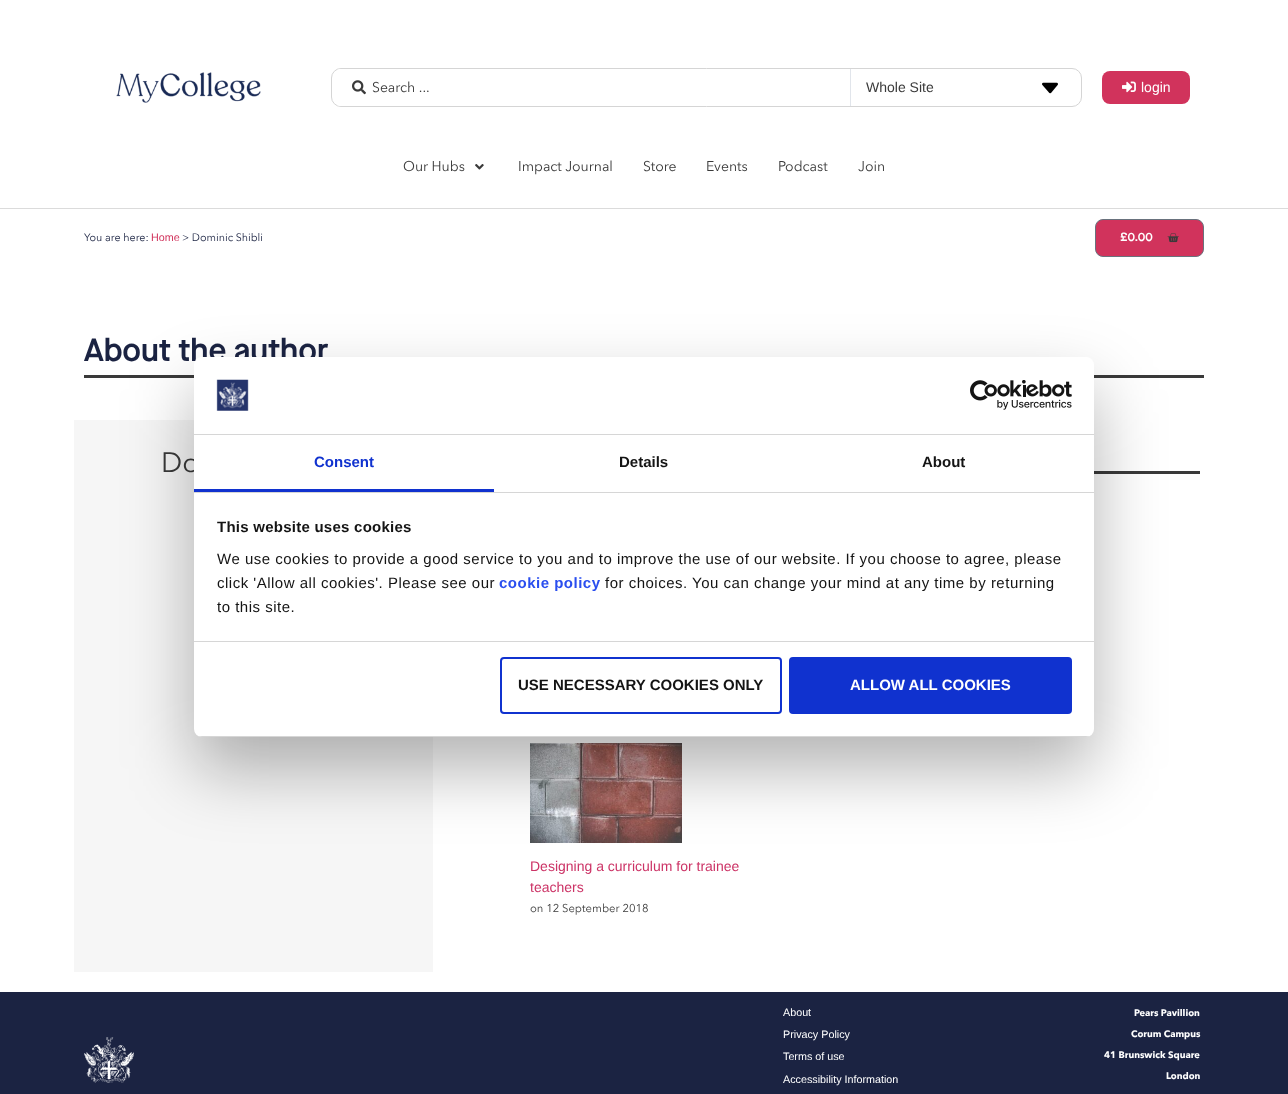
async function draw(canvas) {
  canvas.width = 1288;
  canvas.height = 1094;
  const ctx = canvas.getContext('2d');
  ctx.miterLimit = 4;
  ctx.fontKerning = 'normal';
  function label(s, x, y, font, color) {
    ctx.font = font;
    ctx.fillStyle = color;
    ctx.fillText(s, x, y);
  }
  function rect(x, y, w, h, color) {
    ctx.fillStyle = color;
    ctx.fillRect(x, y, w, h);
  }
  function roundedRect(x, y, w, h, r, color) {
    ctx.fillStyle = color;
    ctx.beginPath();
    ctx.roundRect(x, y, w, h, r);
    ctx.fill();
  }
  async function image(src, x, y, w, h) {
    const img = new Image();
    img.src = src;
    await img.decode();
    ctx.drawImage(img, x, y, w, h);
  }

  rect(0, 0, 1288, 1094, '#fff');
  rect(0, 208, 1288, 1, '#dbdbdb');
  await image('assets/img1.png', 116, 72, 145, 31);
  ctx.beginPath();
  ctx.roundRect(331.5, 68.5, 750, 38, 9.5);
  ctx.strokeStyle = '#d5d5d5';
  ctx.stroke();
  roundedRect(337, 69, 505, 37, 3, '#fff');
  await image('assets/img2.png', 352, 80, 14, 15);
  label('Search ...', 372, 92, '14px Avenir Next', '#3a3a3a');
  rect(850, 69, 1, 37, '#e1e5eb');
  label('Whole Site', 866, 92, '14px Liberation Sans', '#3a3a3a');
  await image('assets/img3.png', 1042, 82, 16, 12);
  roundedRect(1102, 71, 88, 33, 8, '#d1335c');
  await image('assets/img4.png', 1122, 81, 14, 12);
  label('login', 1141, 92, '14px Liberation Sans', '#fff');
  label('Our Hubs', 403, 171, '14px Avenir Next', '#3a3a3a');
  await image('assets/img5.png', 475, 164, 9, 6);
  label('Impact Journal', 518, 171, '14px Avenir Next', '#3a3a3a');
  label('Store', 643, 171, '14px Avenir Next', '#3a3a3a');
  label('Events', 706, 171, '14px Avenir Next', '#3a3a3a');
  label('Podcast', 778, 171, '14px Avenir Next', '#3a3a3a');
  label('Join', 858, 171, '14px Avenir Next', '#3a3a3a');
  label('You are here:', 84, 241, '10.75px Avenir Next', '#1b2342');
  label('Home', 151, 241, '10.75px Liberation Sans', '#d1335c');
  label('> Dominic Shibli', 182, 241, '10.75px Avenir Next', '#1b2342');
  ctx.fillStyle = '#d1335c';
  ctx.beginPath();
  ctx.roundRect(1095.5, 219.5, 108, 37, 7.5);
  ctx.fill();
  ctx.strokeStyle = '#69727d';
  ctx.stroke();
  label('£0.00', 1120, 241, '600 12px Maison Neue', '#fff');
  await image('assets/img6.png', 1167, 233, 12, 10);
  rect(84, 375, 1120, 3, '#3a3a3a');
  label('About the author', 84, 361, '600 32px Maison Neue', '#1b2342');
  rect(74, 420, 359, 552, '#f6f6f6');
  label('Do', 161, 472, '28px Avenir Next', '#3a3a3a');
  rect(1094, 471, 106, 3, '#3a3a3a');
  await image('assets/img7.png', 530, 743, 152, 100);
  label('Designing a curriculum for trainee', 530, 871, '14px Liberation Sans', '#c36');
  label('teachers', 530, 892, '14px Liberation Sans', '#c36');
  label('on 12 September 2018', 530, 912, '11.25px Avenir Next', '#3a3a3a');
  ctx.fillStyle = '#0000004d';
  ctx.filter = 'blur(34px)';
  ctx.beginPath();
  ctx.roundRect(194, 389, 900, 380, 8);
  ctx.fill();
  ctx.filter = 'none';
  roundedRect(194, 357, 900, 380, 8, '#fff');
  rect(194, 434, 900, 1, '#d6d6d6');
  await image('assets/img8.png', 216, 379, 33, 32);
  await image('assets/img9.png', 970, 380, 102, 30);
  rect(194, 492, 900, 1, '#d6d6d6');
  rect(194, 489, 300, 3, '#1032cf');
  label('Consent', 314, 467, 'bold 15px Liberation Sans', '#1032cf');
  label('Details', 619, 467, 'bold 15px Liberation Sans', '#141414');
  label('About', 922, 467, 'bold 15px Liberation Sans', '#141414');
  rect(194, 641, 900, 1, '#d6d6d6');
  ctx.letterSpacing = '0.25px';
  label('This website uses cookies', 217, 532, 'bold 15px Liberation Sans', '#141414');
  ctx.letterSpacing = '0.5px';
  label('We use cookies to provide a good service to you and to improve the use of our website. If you choose to agree, please', 217, 564, '15px Liberation Sans', '#141414');
  label('click \'Allow all cookies\'. Please see our', 217, 588, '15px Liberation Sans', '#141414');
  label('cookie policy', 499, 588, 'bold 15px Liberation Sans', '#2a4eef');
  label('for choices. You can change your mind at any time by returning', 605, 588, '15px Liberation Sans', '#141414');
  label('to this site.', 217, 612, '15px Liberation Sans', '#141414');
  ctx.save();
  ctx.beginPath();
  ctx.roundRect(194, 357, 900, 380, 8);
  ctx.clip();
  rect(194, 736, 900, 1, '#d6d6d6');
  ctx.restore();
  ctx.beginPath();
  ctx.roundRect(501, 658, 280, 55, 3);
  ctx.strokeStyle = '#1032cf';
  ctx.lineWidth = 2;
  ctx.stroke();
  ctx.letterSpacing = '0px';
  label('USE NECESSARY COOKIES ONLY', 518, 690, 'bold 15px Liberation Sans', '#141414');
  ctx.fillStyle = '#1032cf';
  ctx.beginPath();
  ctx.roundRect(790, 658, 281, 55, 3);
  ctx.fill();
  ctx.stroke();
  label('ALLOW ALL COOKIES', 850, 690, 'bold 15px Liberation Sans', '#fff');
  rect(0, 992, 1288, 102, '#1b2342');
  await image('assets/img10.png', 84, 1037, 50, 46);
  label('About', 783, 1016, '10.75px Liberation Sans', '#fff');
  label('Privacy Policy', 783, 1038, '10.75px Liberation Sans', '#fff');
  label('Terms of use', 783, 1060, '10.75px Liberation Sans', '#fff');
  label('Accessibility Information', 783, 1083, '10.75px Liberation Sans', '#fff');
  label('Pears Pavillion', 1134, 1016, 'bold 9.4px Avenir Next', '#fff');
  label('Corum Campus', 1131, 1037, 'bold 9.4px Avenir Next', '#fff');
  label('41 Brunswick Square', 1104, 1058, 'bold 9.4px Avenir Next', '#fff');
  label('London', 1166, 1079, 'bold 9.4px Avenir Next', '#fff');
}

draw(document.querySelector('canvas'));
